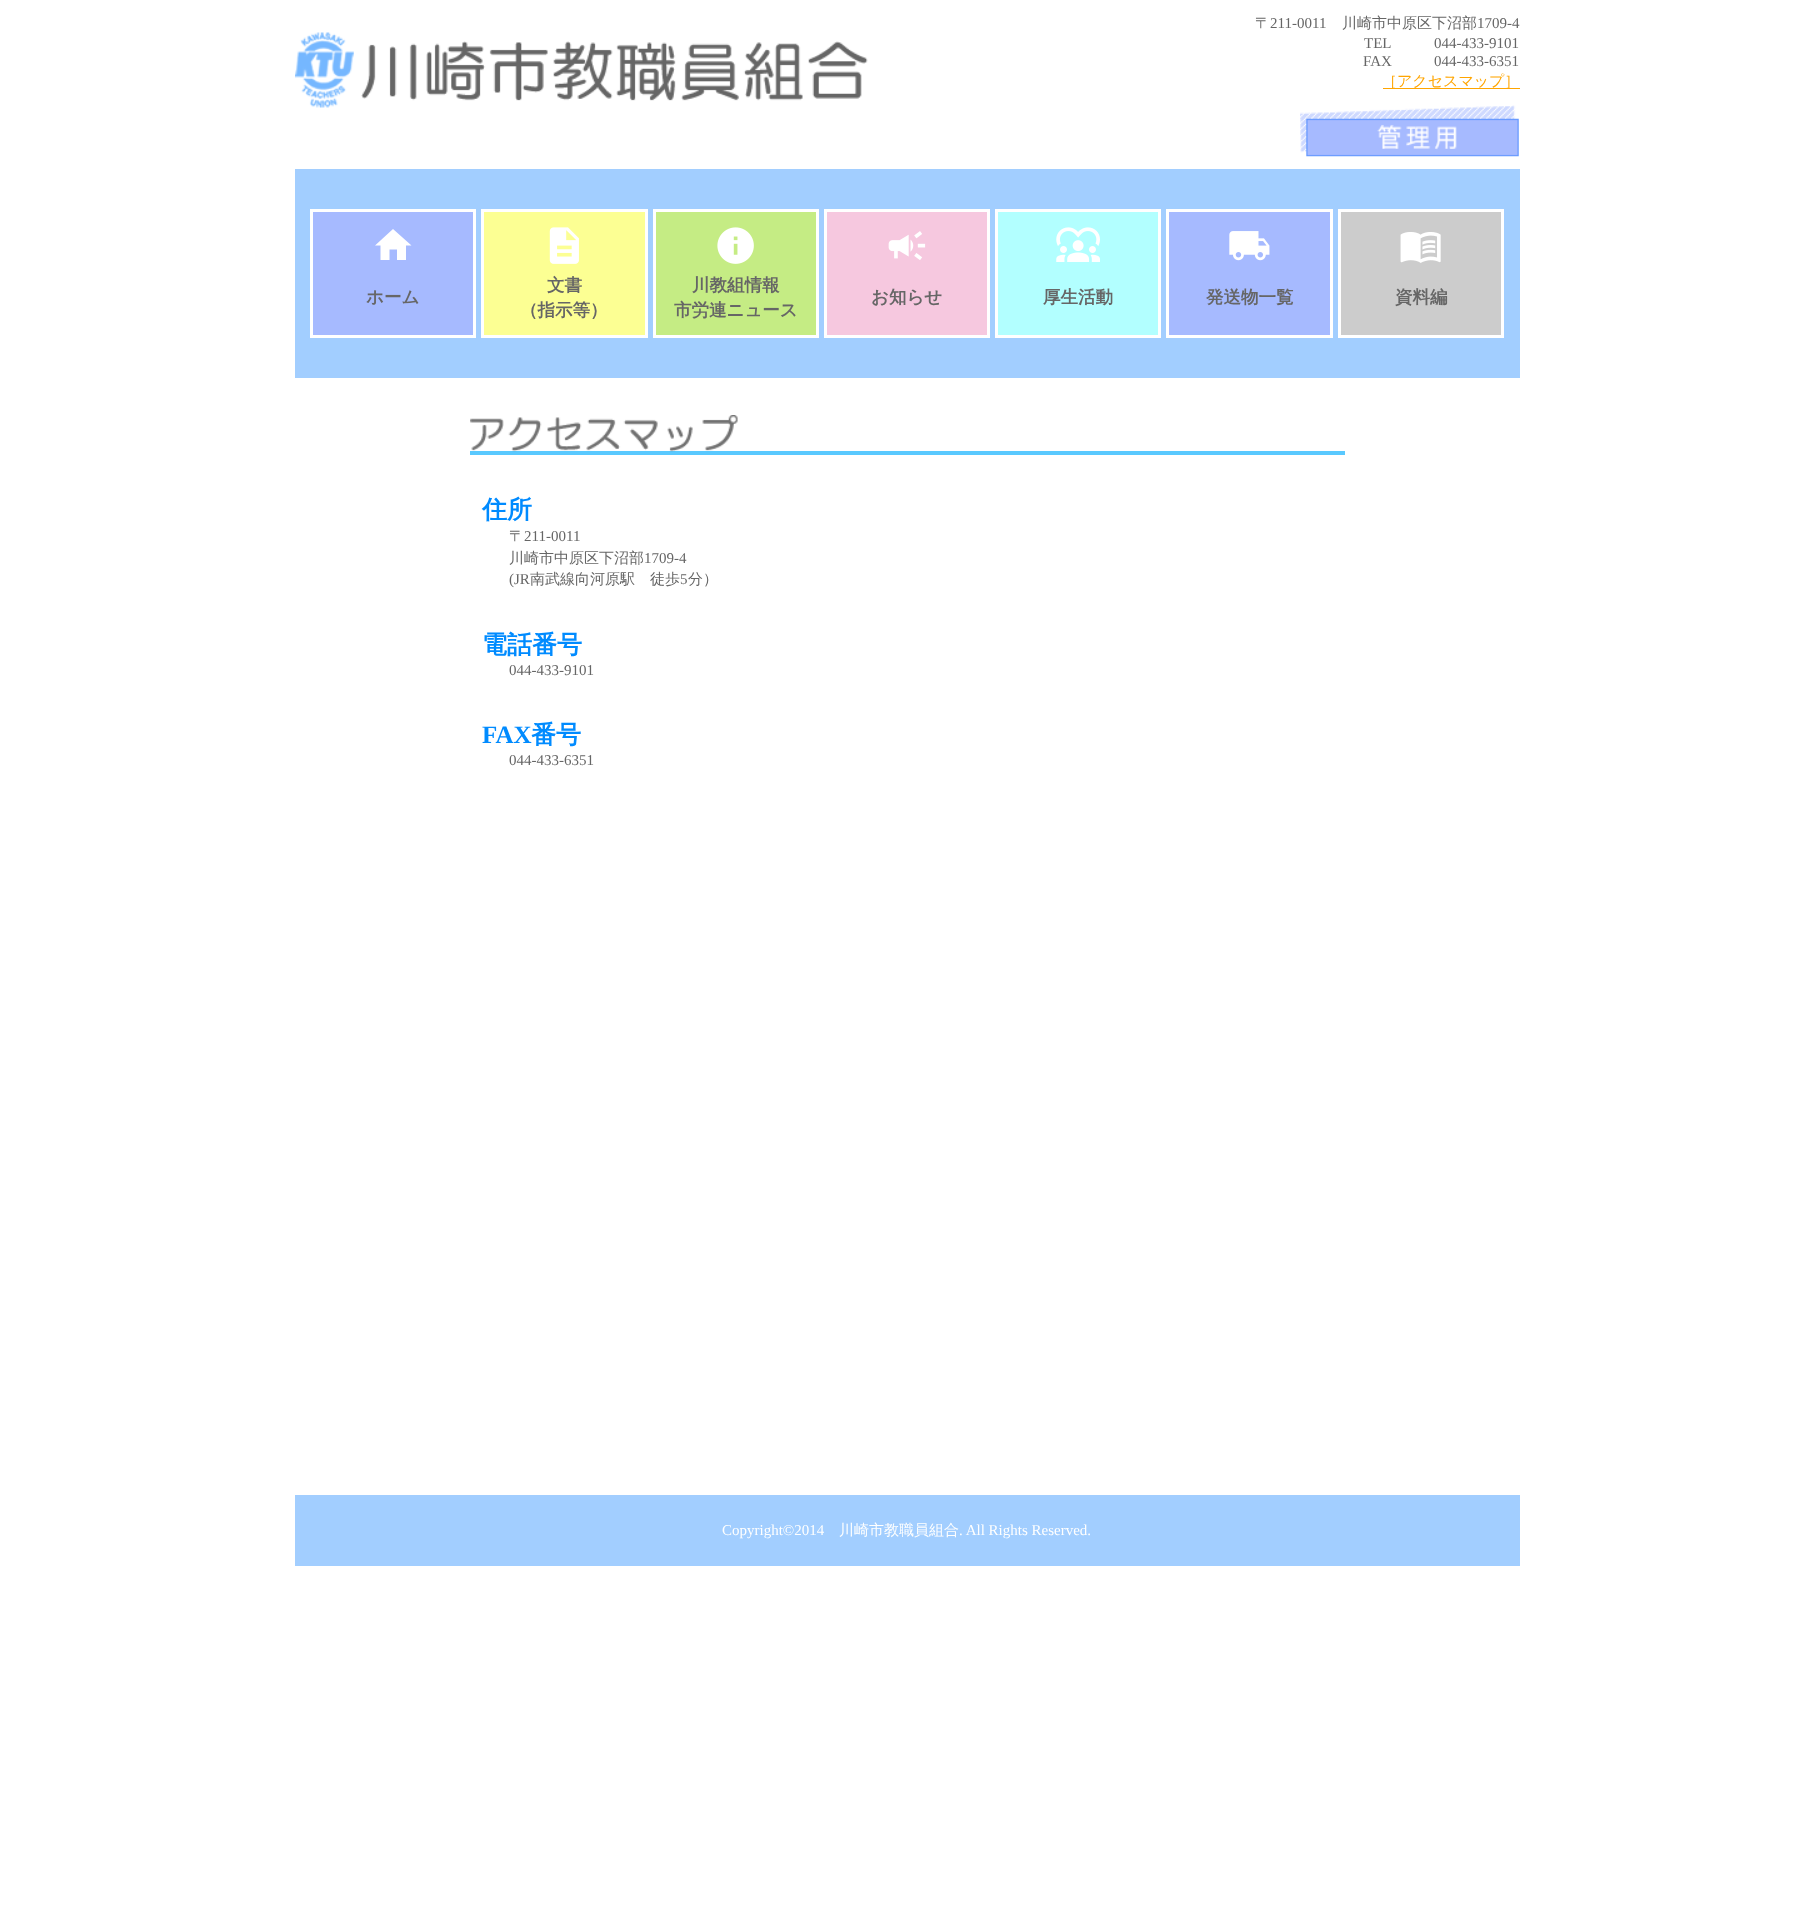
async function draw(canvas) {
  canvas.width = 1813;
  canvas.height = 1927;
  const ctx = canvas.getContext('2d');
  ctx.miterLimit = 4;
  ctx.fontKerning = 'normal';
  function label(s, x, y, font, color) {
    ctx.font = font;
    ctx.fillStyle = color;
    ctx.fillText(s, x, y);
  }
  function rect(x, y, w, h, color) {
    ctx.fillStyle = color;
    ctx.fillRect(x, y, w, h);
  }
  async function image(src, x, y, w, h) {
    const img = new Image();
    img.src = src;
    await img.decode();
    ctx.drawImage(img, x, y, w, h);
  }
  let path;

  rect(0, 0, 1813, 1927, '#fff');
  await image('assets/img1.png', 295, 32, 573, 76);
  label('〒', 1255, 28, '500 15px WenQuanYi Zen Hei', '#666');
  label('211-0011', 1270, 28, '15px Liberation Serif', '#666');
  label('川崎市中原区下沼部', 1342, 28, '500 15px WenQuanYi Zen Hei', '#666');
  label('1709-4', 1477, 28, '15px Liberation Serif', '#666');
  label('TEL', 1364, 48, '15px Liberation Serif', '#666');
  label('044-433-9101', 1434, 48, '15px Liberation Serif', '#666');
  label('FAX', 1363, 66, '15px Liberation Serif', '#666');
  label('044-433-6351', 1434, 66, '15px Liberation Serif', '#666');
  rect(1383, 88, 137, 1, '#ffa500');
  label('［アクセスマップ］', 1382, 86, '500 15px WenQuanYi Zen Hei', '#ffa500');
  await image('assets/img2.png', 1300, 105, 219, 52);
  rect(295, 169, 1225, 209, '#a2ceff');
  ctx.fillStyle = '#a6baff';
  ctx.beginPath();
  ctx.rect(311.5, 210.5, 163, 126);
  ctx.fill();
  ctx.strokeStyle = '#fff';
  ctx.lineWidth = 3;
  ctx.stroke();
  ctx.fillStyle = '#fff';
  path = new Path2D('M389.5 260V249.5H397V260H406V245.5H411.5L393 229L375 245.5H380.5V260Z');
  ctx.fill(path);
  label('ホーム', 366, 303, 'bold 17.5px WenQuanYi Zen Hei', '#666');
  ctx.fillStyle = '#fcff93';
  ctx.beginPath();
  ctx.rect(482.5, 210.5, 164, 126);
  ctx.fill();
  ctx.stroke();
  await image('assets/img3.png', 549, 227, 30, 37);
  label('文書', 547, 291, 'bold 17.5px WenQuanYi Zen Hei', '#666');
  label('（指示等）', 520, 316, 'bold 17.5px WenQuanYi Zen Hei', '#666');
  ctx.fillStyle = '#c5ec84';
  ctx.beginPath();
  ctx.rect(654.5, 210.5, 163, 126);
  ctx.fill();
  ctx.stroke();
  await image('assets/img4.png', 717, 227, 37, 37);
  label('川教組情報', 692, 291, 'bold 17.5px WenQuanYi Zen Hei', '#666');
  label('市労連ニュース', 674, 316, 'bold 17.5px WenQuanYi Zen Hei', '#666');
  ctx.fillStyle = '#f6c8df';
  ctx.beginPath();
  ctx.rect(825.5, 210.5, 163, 126);
  ctx.fill();
  ctx.stroke();
  await image('assets/img5.png', 888, 231, 38, 29);
  label('お知らせ', 871, 303, 'bold 17.5px WenQuanYi Zen Hei', '#666');
  ctx.fillStyle = '#b2ffff';
  ctx.beginPath();
  ctx.rect(996.5, 210.5, 163, 126);
  ctx.fill();
  ctx.stroke();
  await image('assets/img6.png', 1056, 227, 44, 35);
  label('厚生活動', 1043, 303, 'bold 17.5px WenQuanYi Zen Hei', '#666');
  ctx.fillStyle = '#a6baff';
  ctx.beginPath();
  ctx.rect(1167.5, 210.5, 164, 126);
  ctx.fill();
  ctx.stroke();
  await image('assets/img7.png', 1229, 231, 41, 30);
  label('発送物一覧', 1206, 303, 'bold 17.5px WenQuanYi Zen Hei', '#666');
  ctx.fillStyle = '#ccc';
  ctx.beginPath();
  ctx.rect(1339.5, 210.5, 163, 126);
  ctx.fill();
  ctx.stroke();
  await image('assets/img8.png', 1400, 232, 41, 31);
  label('資料編', 1395, 303, 'bold 17.5px WenQuanYi Zen Hei', '#666');
  rect(470, 451, 875, 4, '#59c9ff');
  await image('assets/img9.png', 470, 415, 268, 37);
  label('住所', 482, 518, 'bold 25px WenQuanYi Zen Hei', '#008bff');
  label('〒', 509, 541, '500 15px WenQuanYi Zen Hei', '#666');
  label('211-0011', 524, 541, '15px Liberation Serif', '#666');
  label('川崎市中原区下沼部', 509, 563, '500 15px WenQuanYi Zen Hei', '#666');
  label('1709-4', 644, 563, '15px Liberation Serif', '#666');
  label('(JR', 509, 584, '15px Liberation Serif', '#666');
  label('南武線向河原駅　徒歩', 530, 584, '500 15px WenQuanYi Zen Hei', '#666');
  label('5', 680, 584, '15px Liberation Serif', '#666');
  label('分）', 688, 584, '500 15px WenQuanYi Zen Hei', '#666');
  label('電話番号', 482, 653, 'bold 25px WenQuanYi Zen Hei', '#008bff');
  label('044-433-9101', 509, 675, '15px Liberation Serif', '#666');
  label('FAX', 482, 743, 'bold 25px Liberation Serif', '#008bff');
  label('番号', 531, 743, 'bold 25px WenQuanYi Zen Hei', '#008bff');
  label('044-433-6351', 509, 765, '15px Liberation Serif', '#666');
  rect(295, 1495, 1225, 71, '#a2ceff');
  label('Copyright©2014', 722, 1535, '15px Liberation Serif', '#fff');
  label('川崎市教職員組合', 839, 1535, '500 15px WenQuanYi Zen Hei', '#fff');
  label('. All Rights Reserved.', 959, 1535, '15px Liberation Serif', '#fff');
}

draw(document.querySelector('canvas'));
